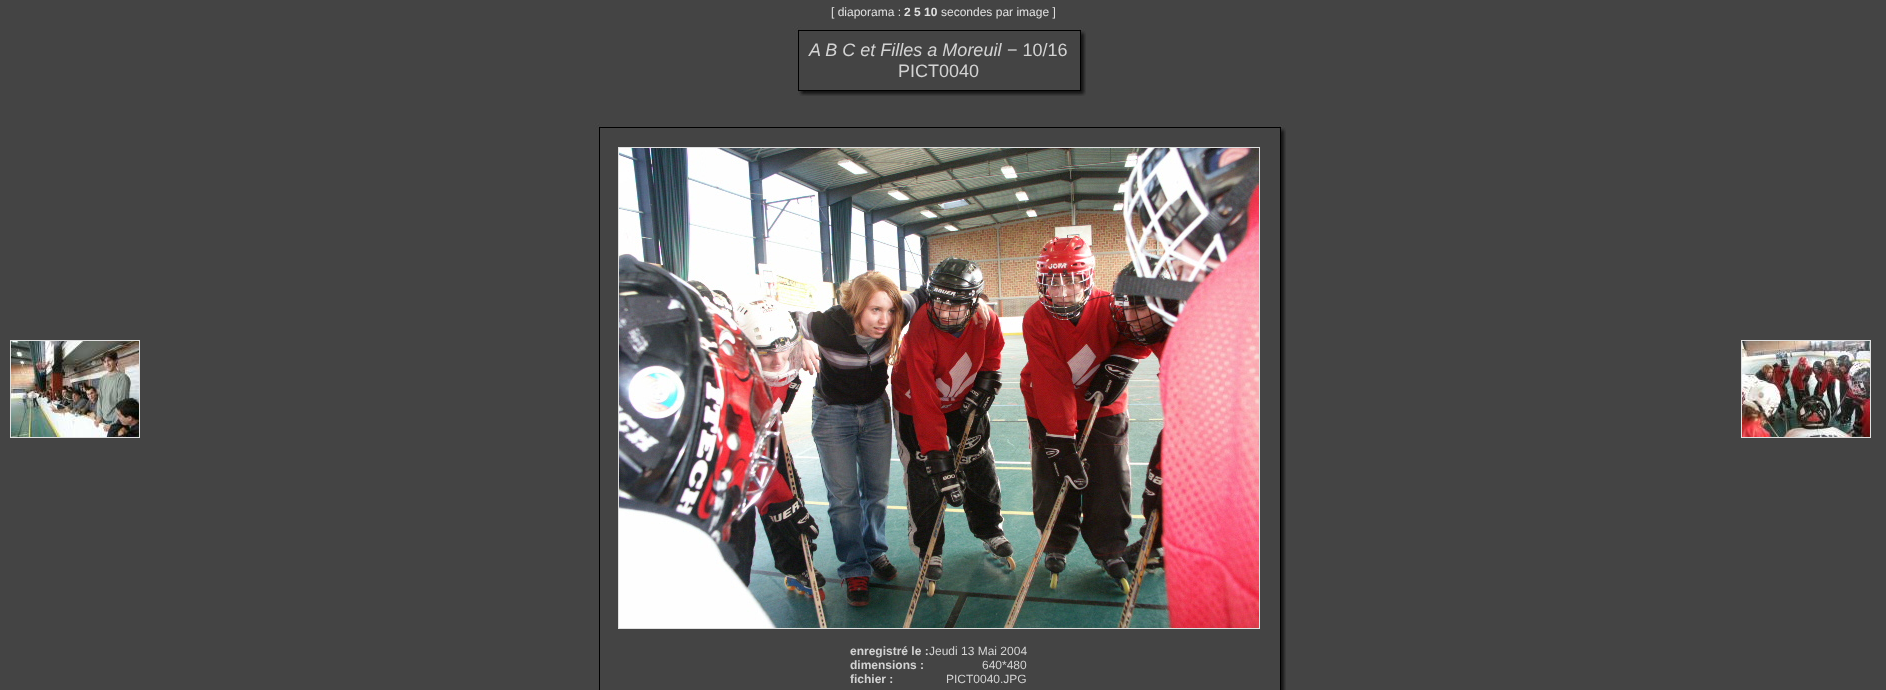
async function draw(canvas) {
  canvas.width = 1886;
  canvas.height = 690;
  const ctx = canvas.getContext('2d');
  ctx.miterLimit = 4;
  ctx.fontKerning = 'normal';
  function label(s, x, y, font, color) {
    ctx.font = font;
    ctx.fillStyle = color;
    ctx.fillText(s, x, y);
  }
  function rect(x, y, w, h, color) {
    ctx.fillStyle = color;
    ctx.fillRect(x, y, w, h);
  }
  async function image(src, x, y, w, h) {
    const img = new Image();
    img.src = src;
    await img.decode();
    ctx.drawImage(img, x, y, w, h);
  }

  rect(0, 0, 1886, 690, '#444');
  label('[ diaporama :', 831, 16, '12px Liberation Sans', '#e0e0e0');
  label('2 5 10', 904, 16, 'bold 12px Liberation Sans', '#e0e0e0');
  label('secondes par image ]', 941, 16, '12px Liberation Sans', '#e0e0e0');
  ctx.strokeStyle = '#e0e0e0';
  ctx.strokeRect(10.5, 340.5, 129, 97);
  await image('assets/img1.png', 11, 341, 128, 96);
  await image('assets/img2.png', 793, 26, 14, 14);
  rect(807, 30, 263, 1, '#000');
  await image('assets/img3.png', 1070, 27, 16, 13);
  rect(798, 40, 1, 42, '#000');
  label('A B C et Filles a Moreuil', 809, 56, 'italic 18px Liberation Sans', '#d3d3d3');
  label('− 10/16', 1007, 56, '18px Liberation Sans', '#d3d3d3');
  label('PICT0040', 898, 77, '18px Liberation Sans', '#d3d3d3');
  await image('assets/img4.png', 1080, 40, 6, 42);
  await image('assets/img5.png', 797, 82, 10, 14);
  await image('assets/img6.png', 807, 90, 263, 6);
  await image('assets/img7.png', 1070, 82, 16, 14);
  await image('assets/img2.png', 594, 123, 14, 14);
  rect(608, 127, 662, 1, '#000');
  await image('assets/img3.png', 1270, 124, 16, 13);
  rect(599, 137, 1, 553, '#000');
  ctx.strokeRect(618.5, 147.5, 641, 481);
  await image('assets/img8.png', 619, 148, 640, 480);
  label('enregistré le :', 850, 655, 'bold 12px Liberation Sans', '#d3d3d3');
  label('Jeudi 13 Mai 2004', 929, 655, '12px Liberation Sans', '#d3d3d3');
  label('dimensions :', 850, 669, 'bold 12px Liberation Sans', '#d3d3d3');
  label('640*480', 982, 669, '12px Liberation Sans', '#d3d3d3');
  label('fichier :', 850, 683, 'bold 12px Liberation Sans', '#d3d3d3');
  label('PICT0040.JPG', 946, 683, '12px Liberation Sans', '#d3d3d3');
  await image('assets/img9.png', 1280, 137, 6, 553);
  ctx.strokeRect(1741.5, 340.5, 129, 97);
  await image('assets/img10.png', 1742, 341, 128, 96);
}

draw(document.querySelector('canvas'));
